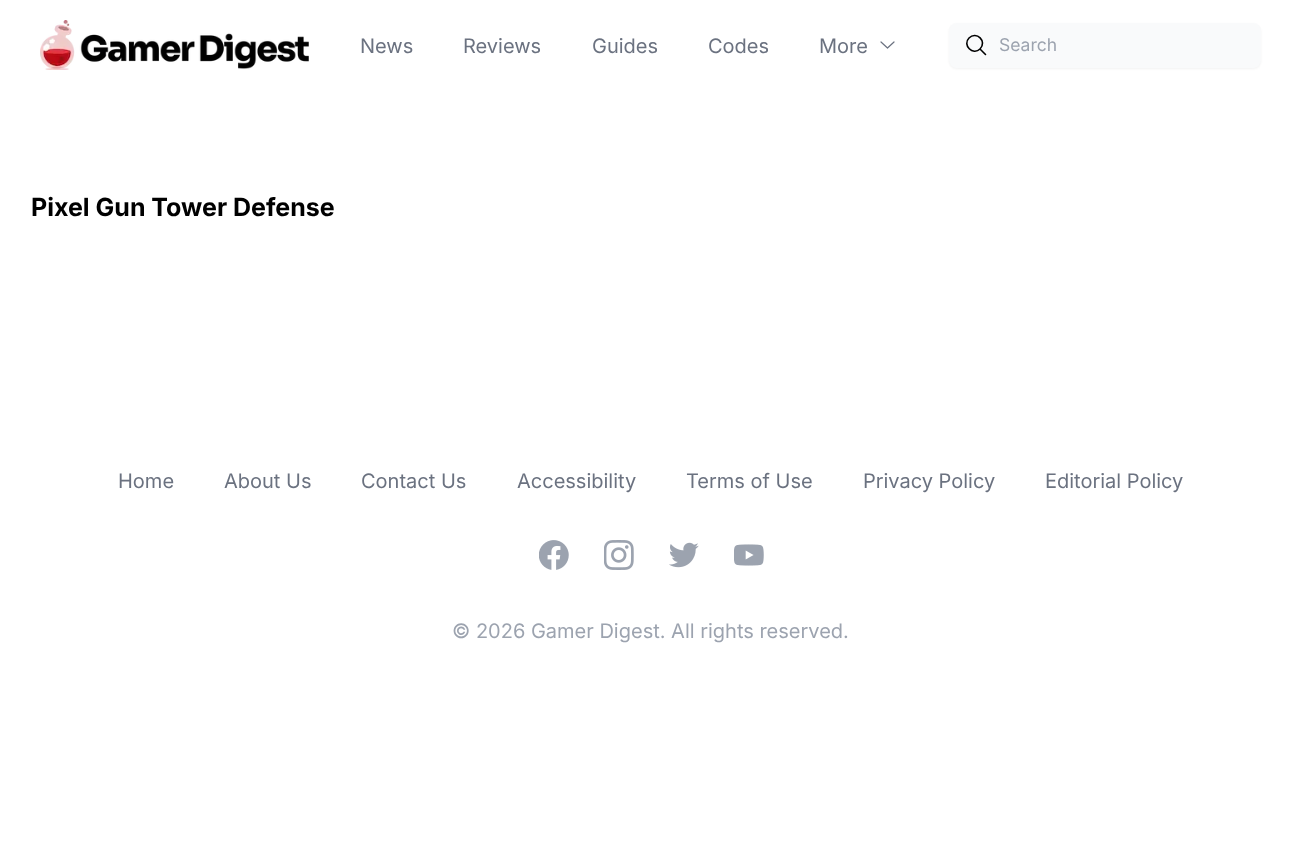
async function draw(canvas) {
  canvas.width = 1301;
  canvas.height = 848;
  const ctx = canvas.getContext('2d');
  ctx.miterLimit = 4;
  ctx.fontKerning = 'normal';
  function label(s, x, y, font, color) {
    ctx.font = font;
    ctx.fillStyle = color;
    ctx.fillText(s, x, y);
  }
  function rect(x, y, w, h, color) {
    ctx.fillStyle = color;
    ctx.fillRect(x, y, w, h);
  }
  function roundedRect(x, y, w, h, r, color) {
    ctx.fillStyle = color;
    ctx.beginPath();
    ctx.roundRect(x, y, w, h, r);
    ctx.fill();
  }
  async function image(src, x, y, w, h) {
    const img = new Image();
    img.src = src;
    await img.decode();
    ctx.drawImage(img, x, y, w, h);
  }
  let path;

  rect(0, 0, 1301, 848, '#fff');
  await image('assets/img1.png', 40, 20, 269, 50);
  label('News', 360, 53, '20px Inter', '#6b7280');
  label('Reviews', 463, 53, '20px Inter', '#6b7280');
  label('Guides', 592, 53, '20px Inter', '#6b7280');
  label('Codes', 708, 53, '20px Inter', '#6b7280');
  label('More', 819, 53, '20px Inter', '#6b7280');
  path = new Path2D('M894 42L887.5 48L881 42');
  ctx.strokeStyle = '#6b7280';
  ctx.lineWidth = 1.2;
  ctx.lineCap = 'round';
  ctx.lineJoin = 'round';
  ctx.stroke(path);
  ctx.fillStyle = '#0000000d';
  ctx.filter = 'blur(1px)';
  ctx.beginPath();
  ctx.roundRect(949, 24, 312, 45, 8);
  ctx.fill();
  ctx.filter = 'none';
  roundedRect(949, 23, 312, 45, 8, '#f9fafb');
  path = new Path2D('M985.5 54.5L980 49M980 49C987.5 41.5 976.5 30.5 969 38C962 45 973 56 980 49Z');
  ctx.strokeStyle = '#000';
  ctx.lineWidth = 1.6;
  ctx.stroke(path);
  label('Search', 999, 51, '17.5px Inter', '#9ca3af');
  label('Pixel Gun Tower Defense', 31, 216, 'bold 25px Inter', '#000');
  label('Home', 118, 488, '20px Inter', '#6b7280');
  label('About Us', 224, 488, '20px Inter', '#6b7280');
  label('Contact Us', 361, 488, '20px Inter', '#6b7280');
  label('Accessibility', 517, 488, '20px Inter', '#6b7280');
  label('Terms of Use', 686, 488, '20px Inter', '#6b7280');
  label('Privacy Policy', 863, 488, '20px Inter', '#6b7280');
  label('Editorial Policy', 1045, 488, '20px Inter', '#6b7280');
  await image('assets/img2.png', 539, 540, 30, 30);
  await image('assets/img3.png', 604, 540, 30, 30);
  await image('assets/img4.png', 669, 542, 30, 26);
  await image('assets/img5.png', 734, 544, 30, 22);
  label('© 2026 Gamer Digest. All rights reserved.', 452, 638, '20px Inter', '#9ca3af');
}

draw(document.querySelector('canvas'));
